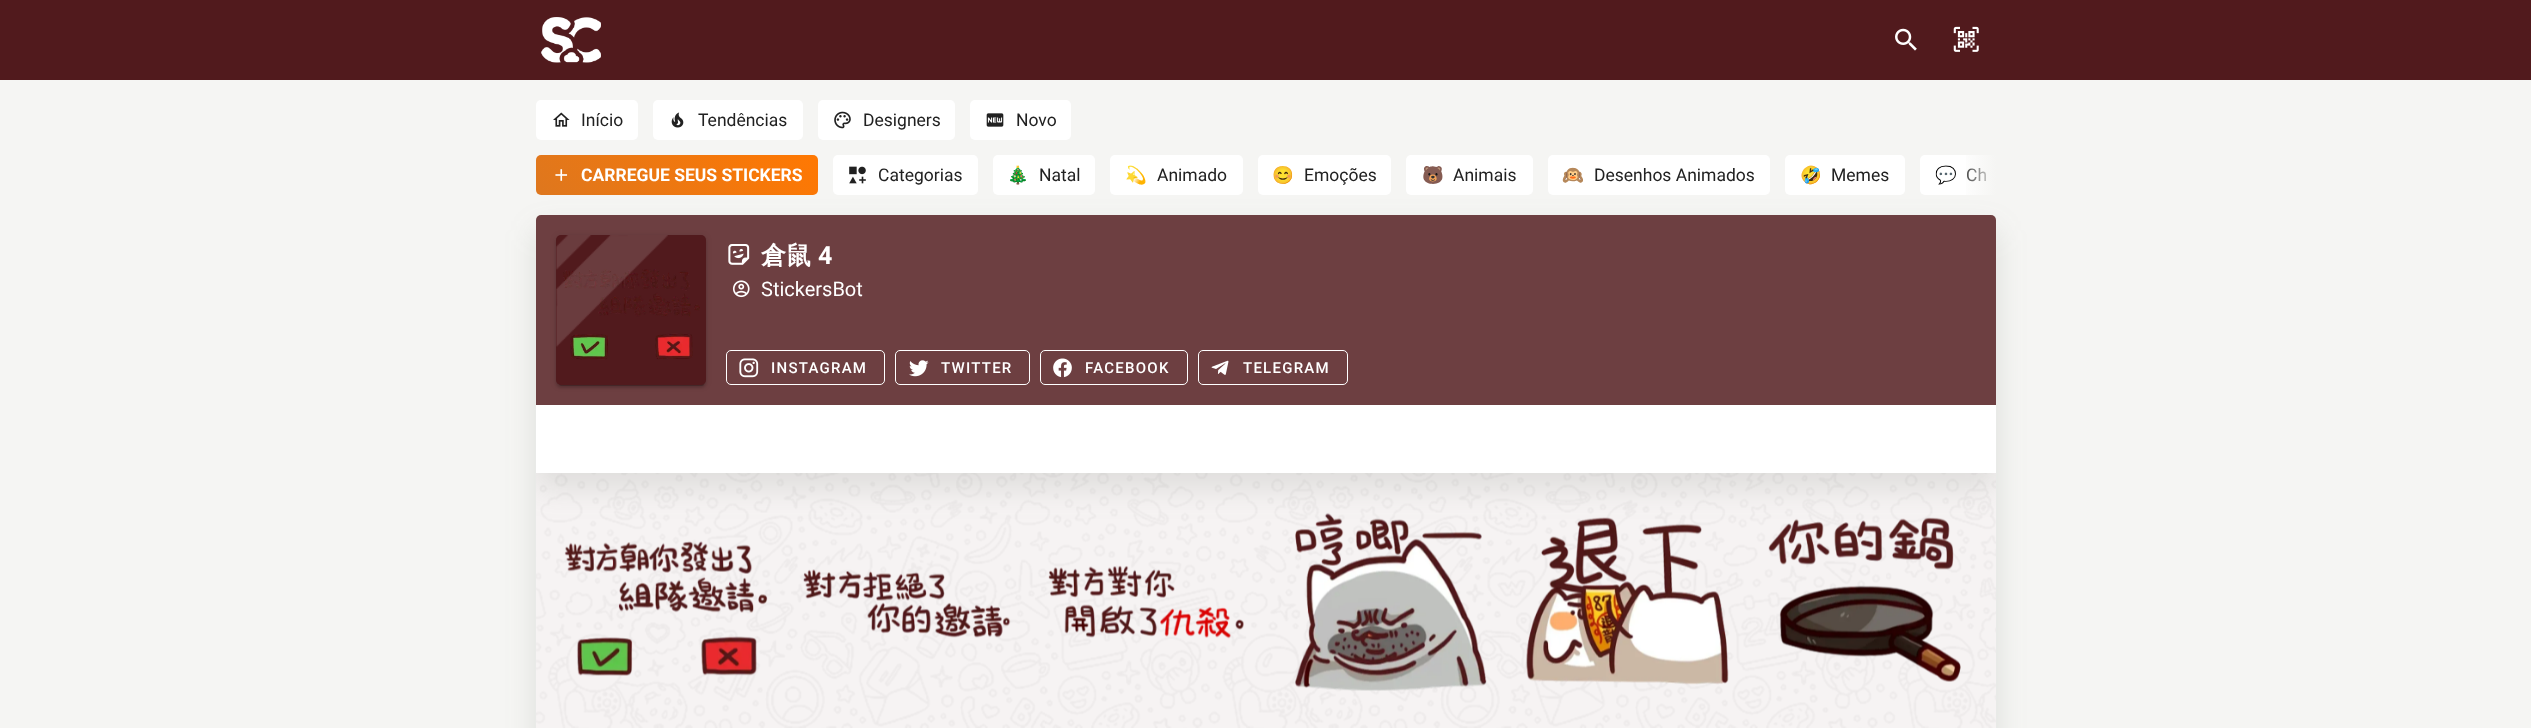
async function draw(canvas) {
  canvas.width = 2531;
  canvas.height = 728;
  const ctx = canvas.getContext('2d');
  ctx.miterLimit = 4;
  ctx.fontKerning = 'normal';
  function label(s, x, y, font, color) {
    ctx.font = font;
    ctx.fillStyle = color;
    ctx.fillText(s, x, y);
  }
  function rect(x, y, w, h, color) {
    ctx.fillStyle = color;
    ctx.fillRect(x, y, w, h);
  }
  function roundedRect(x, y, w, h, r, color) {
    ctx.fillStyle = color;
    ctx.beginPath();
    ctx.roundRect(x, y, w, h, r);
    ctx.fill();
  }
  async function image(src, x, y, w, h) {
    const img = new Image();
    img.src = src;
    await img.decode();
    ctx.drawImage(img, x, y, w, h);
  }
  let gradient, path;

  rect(0, 0, 2531, 728, '#f5f5f3');
  rect(0, 0, 2531, 80, '#511a1d');
  await image('assets/img1.png', 541, 17, 60, 46);
  await image('assets/img2.png', 1895, 28, 22, 23);
  await image('assets/img3.png', 1953, 26, 26, 26);
  roundedRect(536, 100, 102, 40, 5, '#fff');
  await image('assets/img4.png', 553, 112, 17, 15);
  label('Início', 581, 126, '17.5px Roboto', '#212121');
  roundedRect(653, 100, 150, 40, 5, '#fff');
  await image('assets/img5.png', 671, 112, 13, 16);
  label('Tendências', 698, 126, '17.5px Roboto', '#212121');
  roundedRect(818, 100, 137, 40, 5, '#fff');
  await image('assets/img6.png', 834, 111, 17, 18);
  label('Designers', 863, 126, '17.5px Roboto', '#212121');
  roundedRect(970, 100, 101, 40, 5, '#fff');
  await image('assets/img7.png', 986, 113, 18, 14);
  label('Novo', 1016, 126, '17.5px Roboto', '#212121');
  ctx.fillStyle = '#666e6229';
  ctx.filter = 'blur(15px)';
  ctx.beginPath();
  ctx.roundRect(536, 230, 1460, 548, 5);
  ctx.fill();
  ctx.filter = 'none';
  ctx.fillStyle = '#fff';
  ctx.beginPath();
  ctx.roundRect(1920, 155, 76, 40, [5, 0, 0, 5]);
  ctx.fill();
  label('Ch', 1966, 181, '17.5px Roboto', '#212121');
  gradient = ctx.createLinearGradient(1959, 175, 1996, 175);
  gradient.addColorStop(0, '#f5f5f300');
  gradient.addColorStop(1, '#f5f5f3');
  ctx.fillStyle = gradient;
  ctx.fillRect(1966, 155, 30, 40);
  gradient = ctx.createLinearGradient(597, 255, 757, 95);
  gradient.addColorStop(0, '#de771e');
  gradient.addColorStop(1, '#ff7802');
  ctx.fillStyle = gradient;
  ctx.beginPath();
  ctx.roundRect(536, 155, 282, 40, 5);
  ctx.fill();
  await image('assets/img8.png', 555, 169, 13, 12);
  label('CARREGUE SEUS STICKERS', 581, 181, 'bold 17.5px Roboto', '#fff');
  roundedRect(833, 155, 145, 40, 5, '#fff');
  await image('assets/img9.png', 849, 166, 17, 18);
  label('Categorias', 878, 181, '17.5px Roboto', '#212121');
  roundedRect(993, 155, 102, 40, 5, '#fff');
  label('🎄', 1007, 181, '17.5px Noto Color Emoji', '#212121');
  label('Natal', 1039, 181, '17.5px Roboto', '#212121');
  roundedRect(1110, 155, 133, 40, 5, '#fff');
  label('💫', 1125, 181, '17.5px Noto Color Emoji', '#212121');
  label('Animado', 1157, 181, '17.5px Roboto', '#212121');
  roundedRect(1258, 155, 133, 40, 5, '#fff');
  label('😊', 1272, 181, '17.5px Noto Color Emoji', '#212121');
  label('Emoções', 1304, 181, '17.5px Roboto', '#212121');
  roundedRect(1406, 155, 127, 40, 5, '#fff');
  label('🐻', 1422, 181, '17.5px Noto Color Emoji', '#212121');
  label('Animais', 1453, 181, '17.5px Roboto', '#212121');
  roundedRect(1548, 155, 222, 40, 5, '#fff');
  label('🙉', 1562, 181, '17.5px Noto Color Emoji', '#212121');
  label('Desenhos Animados', 1594, 181, '17.5px Roboto', '#212121');
  roundedRect(1785, 155, 120, 40, 5, '#fff');
  label('🤣', 1800, 181, '17.5px Noto Color Emoji', '#212121');
  label('Memes', 1831, 181, '17.5px Roboto', '#212121');
  label('💬', 1935, 181, '17.5px Noto Color Emoji', '#212121');
  roundedRect(536, 215, 1460, 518, 5, '#fff');
  ctx.save();
  ctx.beginPath();
  ctx.roundRect(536, 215, 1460, 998, 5);
  ctx.clip();
  path = new Path2D('M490 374H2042V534H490ZM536 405H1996V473H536Z');
  ctx.clip(path, 'evenodd');
  ctx.fillStyle = '#666e6229';
  ctx.filter = 'blur(15px)';
  ctx.beginPath();
  ctx.rect(536, 420, 1460, 68);
  ctx.fill();
  ctx.filter = 'none';
  ctx.restore();
  ctx.fillStyle = '#511a1dd6';
  ctx.beginPath();
  ctx.roundRect(536, 215, 1460, 190, [5, 5, 0, 0]);
  ctx.fill();
  ctx.fillStyle = '#0000001f';
  ctx.filter = 'blur(3px)';
  ctx.beginPath();
  ctx.roundRect(556, 236, 150, 150, 5);
  ctx.fill();
  ctx.filter = 'none';
  ctx.fillStyle = '#00000024';
  ctx.filter = 'blur(1px)';
  ctx.beginPath();
  ctx.roundRect(556, 238, 150, 150, 5);
  ctx.fill();
  ctx.filter = 'none';
  ctx.fillStyle = '#00000033';
  ctx.filter = 'blur(0.5px)';
  ctx.beginPath();
  ctx.roundRect(559, 241, 145, 145, 2.5);
  ctx.fill();
  ctx.filter = 'none';
  roundedRect(556, 235, 150, 150, 5, '#511a1d');
  await image('assets/img11.png', 563, 269, 137, 91);
  await image('assets/img10.png', 556, 235, 112, 112);
  await image('assets/img12.png', 728, 244, 22, 21);
  label('倉鼠', 761, 264, 'bold 25px WenQuanYi Zen Hei', '#fff');
  label('4', 818, 264, 'bold 25px Roboto', '#fff');
  await image('assets/img13.png', 732, 280, 18, 18);
  label('StickersBot', 761, 296, '20px Roboto', '#fff');
  ctx.beginPath();
  ctx.roundRect(726.5, 350.5, 158, 34, 4.5);
  ctx.strokeStyle = '#fff';
  ctx.stroke();
  await image('assets/img14.png', 739, 358, 20, 20);
  ctx.letterSpacing = '1.25px';
  label('INSTAGRAM', 771, 373, '500 15px Roboto', '#fff');
  ctx.beginPath();
  ctx.roundRect(895.5, 350.5, 134, 34, 4.5);
  ctx.stroke();
  await image('assets/img15.png', 909, 360, 20, 17);
  label('TWITTER', 941, 373, '500 15px Roboto', '#fff');
  ctx.beginPath();
  ctx.roundRect(1040.5, 350.5, 147, 34, 4.5);
  ctx.stroke();
  await image('assets/img16.png', 1053, 358, 19, 20);
  label('FACEBOOK', 1085, 373, '500 15px Roboto', '#fff');
  ctx.beginPath();
  ctx.roundRect(1198.5, 350.5, 149, 34, 4.5);
  ctx.stroke();
  await image('assets/img17.png', 1211, 360, 18, 15);
  label('TELEGRAM', 1243, 373, '500 15px Roboto', '#fff');
  rect(536, 473, 1460, 255, '#511a1d0d');
  await image('assets/img18.png', 536, 473, 1460, 255);
  await image('assets/img19.png', 564, 541, 204, 135);
  await image('assets/img20.png', 803, 569, 208, 69);
  await image('assets/img21.png', 1048, 565, 196, 74);
  await image('assets/img22.png', 1295, 513, 192, 178);
  await image('assets/img23.png', 1526, 517, 203, 168);
  await image('assets/img24.png', 1768, 517, 193, 165);
}

draw(document.querySelector('canvas'));
